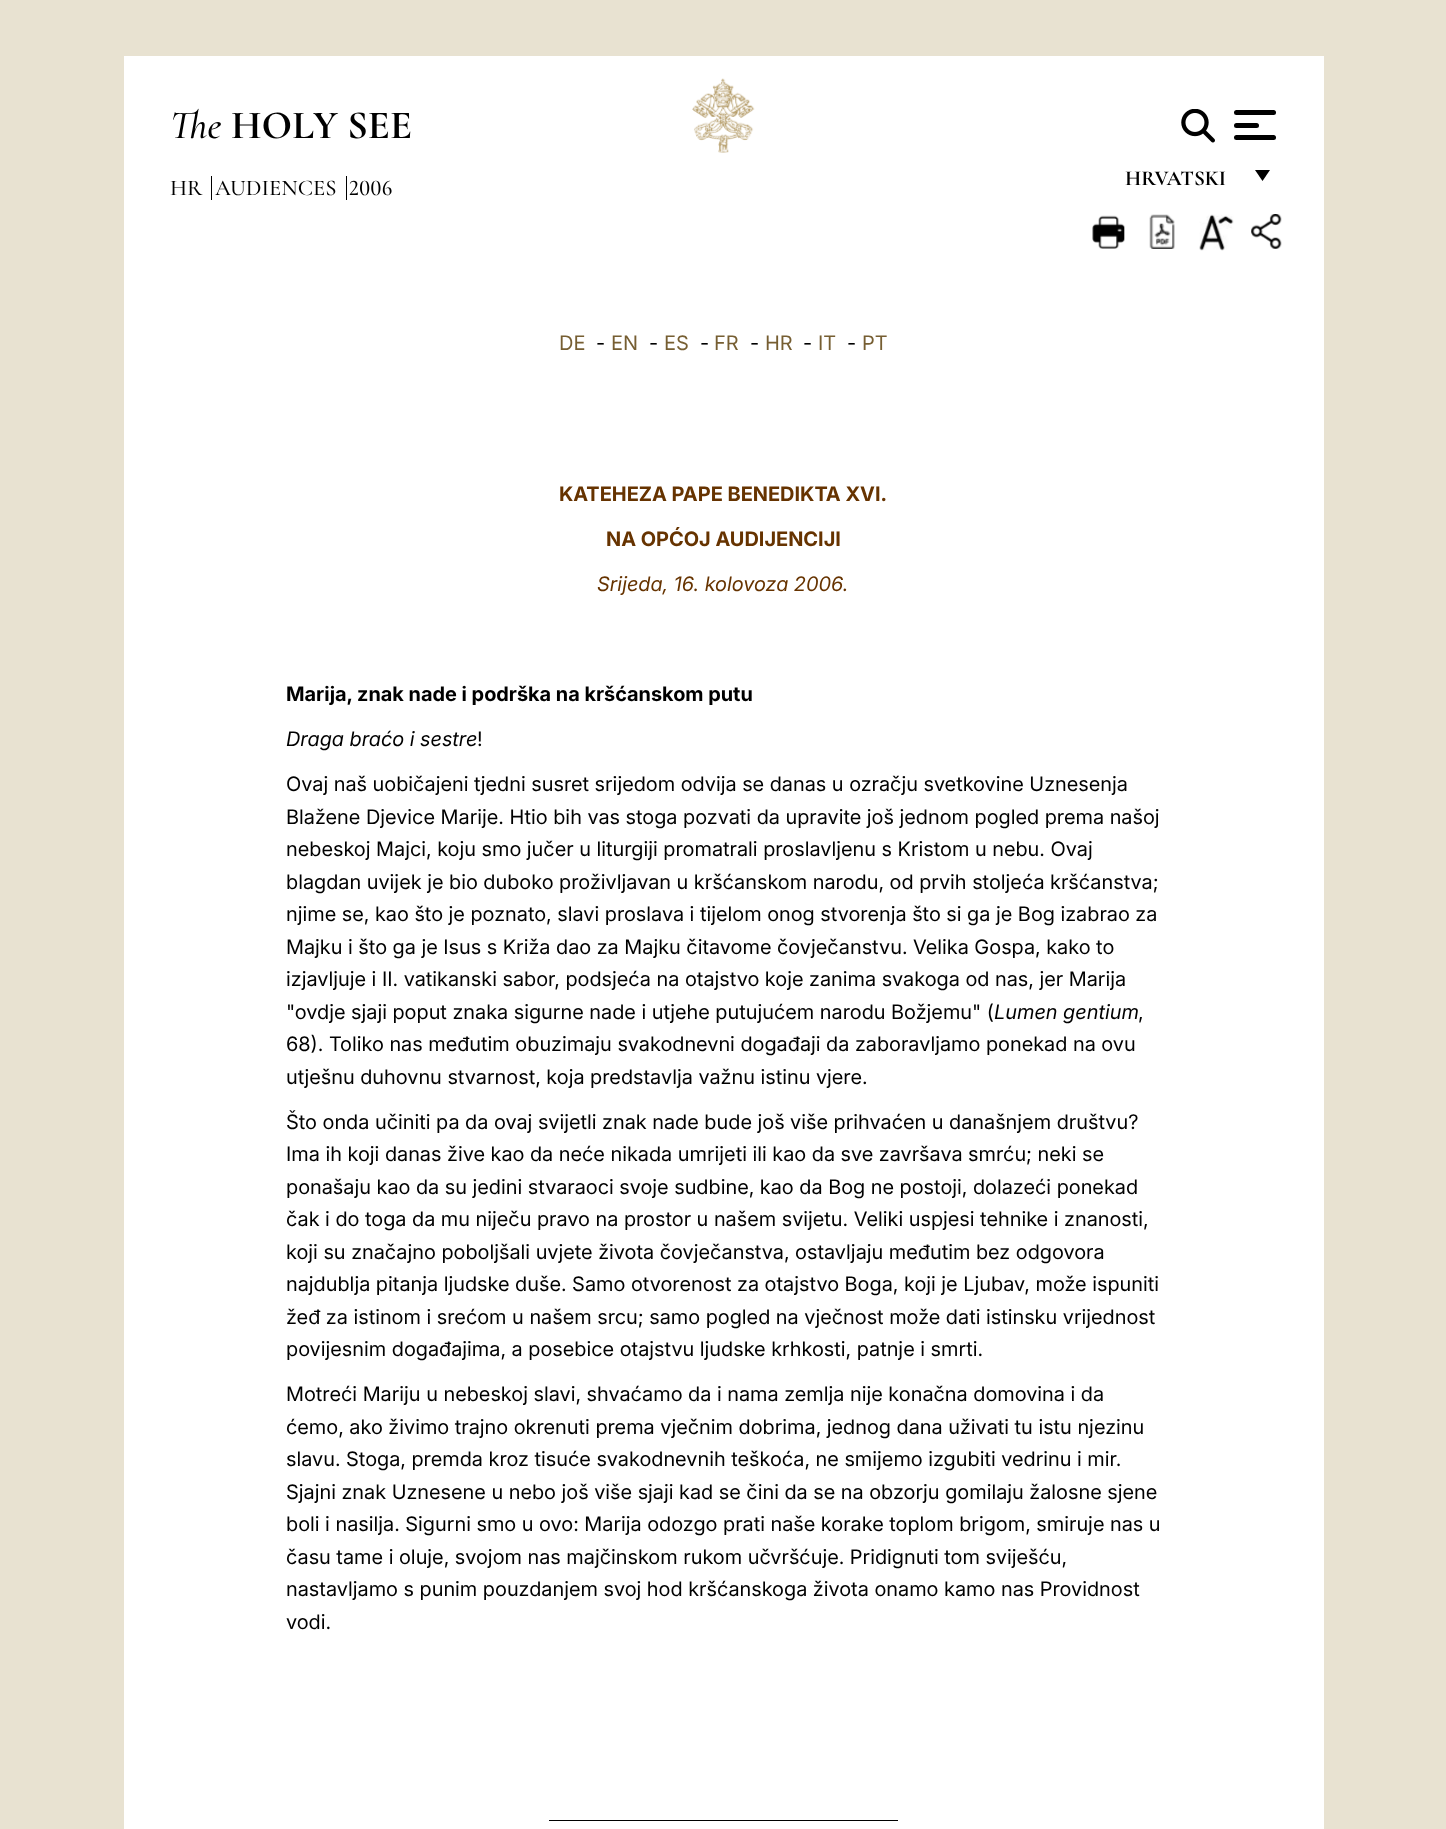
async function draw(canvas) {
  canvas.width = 1446;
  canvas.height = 1829;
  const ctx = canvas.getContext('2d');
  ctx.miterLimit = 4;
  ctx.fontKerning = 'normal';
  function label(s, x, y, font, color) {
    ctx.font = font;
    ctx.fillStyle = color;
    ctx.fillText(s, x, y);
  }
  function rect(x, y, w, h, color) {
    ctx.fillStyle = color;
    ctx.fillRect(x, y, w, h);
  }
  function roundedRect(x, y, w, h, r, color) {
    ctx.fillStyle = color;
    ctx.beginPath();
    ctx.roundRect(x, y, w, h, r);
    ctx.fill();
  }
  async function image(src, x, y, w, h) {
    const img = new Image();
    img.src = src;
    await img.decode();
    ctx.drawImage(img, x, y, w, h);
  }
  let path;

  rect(0, 0, 1446, 1829, '#e8e2d1');
  rect(124, 56, 1200, 1773, '#fff');
  label('The', 170, 138, 'italic 500 40px Cormorant Garamond', '#000');
  label('HOLY SEE', 231, 138, 'bold 40px Cormorant Garamond', '#000');
  await image('assets/img1.png', 692, 78, 63, 75);
  await image('assets/img2.png', 1181, 109, 34, 34);
  roundedRect(1234, 110, 42, 5, 2.5, '#000');
  roundedRect(1234, 123, 25, 5, 2.5, '#000');
  roundedRect(1234, 135, 42, 5, 2.5, '#000');
  label('HRVATSKI', 1125, 185, 'bold 21.25px Cormorant Garamond', '#000');
  path = new Path2D('M1255 170H1270L1262.5 181Z');
  ctx.fill(path);
  label('HR', 170, 195, '500 22.5px Cormorant Garamond', '#000');
  rect(211, 176, 1, 24, '#000');
  label('AUDIENCES', 215, 195, '500 22.5px Cormorant Garamond', '#000');
  rect(346, 176, 1, 24, '#000');
  label('2006', 349, 195, '500 22.5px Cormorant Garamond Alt', '#000');
  await image('assets/img3.png', 1092, 215, 33, 34);
  await image('assets/img4.png', 1149, 214, 26, 35);
  await image('assets/img5.png', 1199, 214, 35, 37);
  await image('assets/img6.png', 1251, 214, 31, 35);
  label('DE', 559, 350, '20px Inter', '#765e32');
  label('-', 596, 350, '20px "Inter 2"', '#000');
  label('EN', 611, 350, '20px Inter', '#765e32');
  label('-', 649, 350, '20px "Inter 2"', '#000');
  label('ES', 664, 350, '20px Inter', '#765e32');
  label('-', 700, 350, '20px "Inter 2"', '#000');
  label('FR', 714, 350, '20px Inter', '#765e32');
  label('-', 750, 350, '20px "Inter 2"', '#000');
  label('HR', 765, 350, '20px Inter', '#765e32');
  label('-', 803, 350, '20px "Inter 2"', '#000');
  label('IT', 818, 350, '20px "Inter 2"', '#765e32');
  label('-', 847, 350, '20px "Inter 2"', '#000');
  label('PT', 862, 350, '20px "Inter 2"', '#765e32');
  label('KATEHEZA PAPE BENEDIKTA XVI.', 559, 501, 'bold 20px Inter', '#630');
  label('NA OPĆOJ AUDIJENCIJI', 606, 546, 'bold 20px Inter', '#630');
  label('Srijeda, 16. kolovoza 2006.', 597, 591, 'italic 20px Inter', '#630');
  label('Marija, znak nade i podrška na kršćanskom putu', 286, 701, 'bold 20px Inter', '#000');
  label('Draga braćo i sestre', 286, 746, 'italic 20px Inter', '#000');
  label('!', 477, 746, '20px "Inter 2"', '#000');
  label('Ovaj naš uobičajeni tjedni susret srijedom odvija se danas u ozračju svetkovine Uznesenja', 286, 791, '20px "Inter 2"', '#000');
  label('Blažene Djevice Marije. Htio bih vas stoga pozvati da upravite još jednom pogled prema našoj', 286, 824, '20px "Inter 2"', '#000');
  label('nebeskoj Majci, koju smo jučer u liturgiji promatrali proslavljenu s Kristom u nebu. Ovaj', 286, 856, '20px "Inter 2"', '#000');
  label('blagdan uvijek je bio duboko proživljavan u kršćanskom narodu, od prvih stoljeća kršćanstva;', 286, 889, '20px "Inter 2"', '#000');
  label('njime se, kao što je poznato, slavi proslava i tijelom onog stvorenja što si ga je Bog izabrao za', 286, 921, '20px "Inter 2"', '#000');
  label('Majku i što ga je Isus s Križa dao za Majku čitavome čovječanstvu. Velika Gospa, kako to', 286, 954, '20px "Inter 2"', '#000');
  label('izjavljuje i II. vatikanski sabor, podsjeća na otajstvo koje zanima svakoga od nas, jer Marija', 286, 986, '20px "Inter 2"', '#000');
  label('"ovdje sjaji poput znaka sigurne nade i utjehe putujućem narodu Božjemu" (', 286, 1019, '20px "Inter 2"', '#000');
  label('Lumen gentium', 994, 1019, 'italic 20px Inter', '#000');
  label(',', 1138, 1019, '20px "Inter 2"', '#000');
  label('68). Toliko nas međutim obuzimaju svakodnevni događaji da zaboravljamo ponekad na ovu', 286, 1051, '20px "Inter 2"', '#000');
  label('utješnu duhovnu stvarnost, koja predstavlja važnu istinu vjere.', 286, 1084, '20px "Inter 2"', '#000');
  label('Što onda učiniti pa da ovaj svijetli znak nade bude još više prihvaćen u današnjem društvu?', 286, 1129, '20px "Inter 2"', '#000');
  label('Ima ih koji danas žive kao da neće nikada umrijeti ili kao da sve završava smrću; neki se', 286, 1161, '20px "Inter 2"', '#000');
  label('ponašaju kao da su jedini stvaraoci svoje sudbine, kao da Bog ne postoji, dolazeći ponekad', 286, 1194, '20px "Inter 2"', '#000');
  label('čak i do toga da mu niječu pravo na prostor u našem svijetu. Veliki uspjesi tehnike i znanosti,', 286, 1226, '20px "Inter 2"', '#000');
  label('koji su značajno poboljšali uvjete života čovječanstva, ostavljaju međutim bez odgovora', 286, 1259, '20px "Inter 2"', '#000');
  label('najdublja pitanja ljudske duše. Samo otvorenost za otajstvo Boga, koji je Ljubav, može ispuniti', 286, 1291, '20px "Inter 2"', '#000');
  label('žeđ za istinom i srećom u našem srcu; samo pogled na vječnost može dati istinsku vrijednost', 286, 1324, '20px "Inter 2"', '#000');
  label('povijesnim događajima, a posebice otajstvu ljudske krhkosti, patnje i smrti.', 286, 1356, '20px "Inter 2"', '#000');
  label('Motreći Mariju u nebeskoj slavi, shvaćamo da i nama zemlja nije konačna domovina i da', 286, 1401, '20px "Inter 2"', '#000');
  label('ćemo, ako živimo trajno okrenuti prema vječnim dobrima, jednog dana uživati tu istu njezinu', 286, 1434, '20px "Inter 2"', '#000');
  label('slavu. Stoga, premda kroz tisuće svakodnevnih teškoća, ne smijemo izgubiti vedrinu i mir.', 286, 1466, '20px "Inter 2"', '#000');
  label('Sjajni znak Uznesene u nebo još više sjaji kad se čini da se na obzorju gomilaju žalosne sjene', 286, 1499, '20px "Inter 2"', '#000');
  label('boli i nasilja. Sigurni smo u ovo: Marija odozgo prati naše korake toplom brigom, smiruje nas u', 286, 1531, '20px "Inter 2"', '#000');
  label('času tame i oluje, svojom nas majčinskom rukom učvršćuje. Pridignuti tom sviješću,', 286, 1564, '20px "Inter 2"', '#000');
  label('nastavljamo s punim pouzdanjem svoj hod kršćanskoga života onamo kamo nas Providnost', 286, 1596, '20px "Inter 2"', '#000');
  label('vodi.', 286, 1629, '20px "Inter 2"', '#000');
  rect(549, 1820, 349, 1, '#000');
}

draw(document.querySelector('canvas'));
